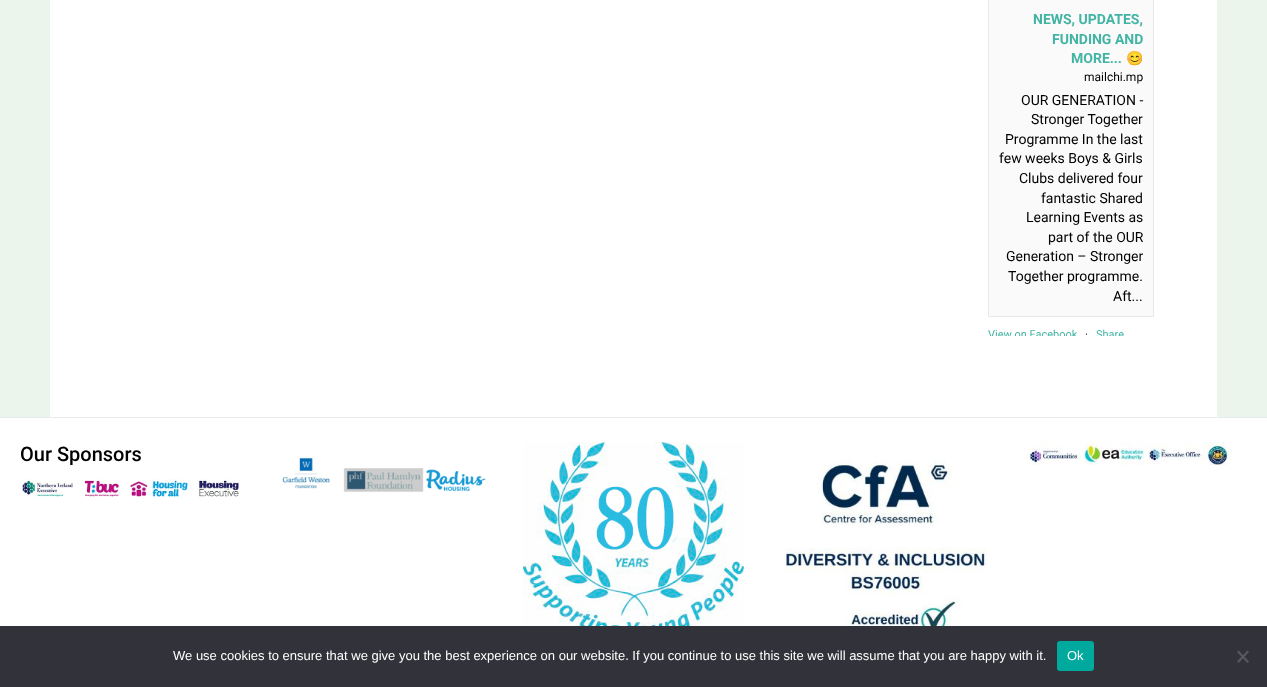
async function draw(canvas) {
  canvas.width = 1267;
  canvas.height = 687;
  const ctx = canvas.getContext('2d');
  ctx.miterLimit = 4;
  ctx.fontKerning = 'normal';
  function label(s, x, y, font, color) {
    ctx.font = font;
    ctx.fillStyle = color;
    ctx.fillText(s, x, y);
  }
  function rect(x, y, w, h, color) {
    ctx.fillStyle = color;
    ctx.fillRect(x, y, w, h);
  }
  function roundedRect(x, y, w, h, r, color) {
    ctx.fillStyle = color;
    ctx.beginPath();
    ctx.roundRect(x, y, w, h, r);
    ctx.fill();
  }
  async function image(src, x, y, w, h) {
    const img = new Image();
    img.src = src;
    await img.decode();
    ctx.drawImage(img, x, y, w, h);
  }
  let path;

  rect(0, 0, 1267, 687, '#fff');
  rect(1217, 0, 50, 417, '#ecf5eb');
  rect(0, 0, 50, 417, '#ecf5eb');
  ctx.fillStyle = '#fafafa';
  ctx.beginPath();
  ctx.rect(988.5, -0.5, 165, 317);
  ctx.fill();
  ctx.strokeStyle = '#e9e9e9';
  ctx.stroke();
  label('NEWS, UPDATES,', 1033, 24, 'bold 14px Roboto', '#42b4a4');
  label('FUNDING AND', 1052, 44, 'bold 14px Roboto', '#42b4a4');
  label('MORE...', 1071, 63, 'bold 14px Roboto', '#42b4a4');
  label('😊', 1126, 63, 'bold 14px Noto Color Emoji', '#42b4a4');
  label('mailchi.mp', 1084, 81, '12px Roboto', '#010101');
  label('OUR GENERATION -', 1021, 105, '14px Roboto', '#010101');
  label('Stronger Together', 1031, 124, '14px Roboto', '#010101');
  label('Programme In the last', 1005, 144, '14px Roboto', '#010101');
  label('few weeks Boys & Girls', 999, 163, '14px Roboto', '#010101');
  label('Clubs delivered four', 1019, 183, '14px Roboto', '#010101');
  label('fantastic Shared', 1041, 203, '14px Roboto', '#010101');
  label('Learning Events as', 1026, 222, '14px Roboto', '#010101');
  label('part of the OUR', 1048, 242, '14px Roboto', '#010101');
  label('Generation – Stronger', 1006, 261, '14px Roboto', '#010101');
  label('Together programme.', 1008, 281, '14px Roboto', '#010101');
  label('Aft...', 1113, 301, '14px Roboto', '#010101');
  ctx.save();
  ctx.beginPath();
  ctx.rect(948, 0, 246, 336);
  ctx.clip();
  label('View on Facebook', 988, 338, '11px Roboto', '#42b4a4');
  ctx.restore();
  label('·', 1085, 338, '11px Roboto', '#010101');
  ctx.save();
  ctx.beginPath();
  ctx.rect(948, 0, 246, 336);
  ctx.clip();
  label('Share', 1096, 338, '11px Roboto', '#42b4a4');
  ctx.restore();
  rect(0, 417, 1267, 1, '#e9ecef');
  label('Our Sponsors', 20, 461, '500 20px Roboto', '#010101');
  await image('assets/img1.png', 20, 479, 220, 18);
  await image('assets/img2.png', 282, 457, 204, 35);
  await image('assets/img3.png', 523, 442, 221, 184);
  await image('assets/img4.png', 785, 460, 202, 166);
  await image('assets/img5.png', 1026, 442, 206, 23);
  rect(0, 626, 1267, 61, '#32323a');
  label('We use cookies to ensure that we give you the best experience on our website. If you continue to use this site we will assume that you are happy with it.', 173, 660, '13px Liberation Sans', '#fff');
  roundedRect(1057, 641, 37, 30, 3, '#00a99d');
  label('Ok', 1067, 660, '13px Liberation Sans', '#fff');
  ctx.fillStyle = '#59595d';
  path = new Path2D('M1247.5 650.5L1249 652L1238.5 663L1237 661.5Z');
  ctx.fill(path);
  path = new Path2D('M1237 652L1238.5 650.5L1249 661.5L1247.5 663Z');
  ctx.fill(path);
}

draw(document.querySelector('canvas'));
